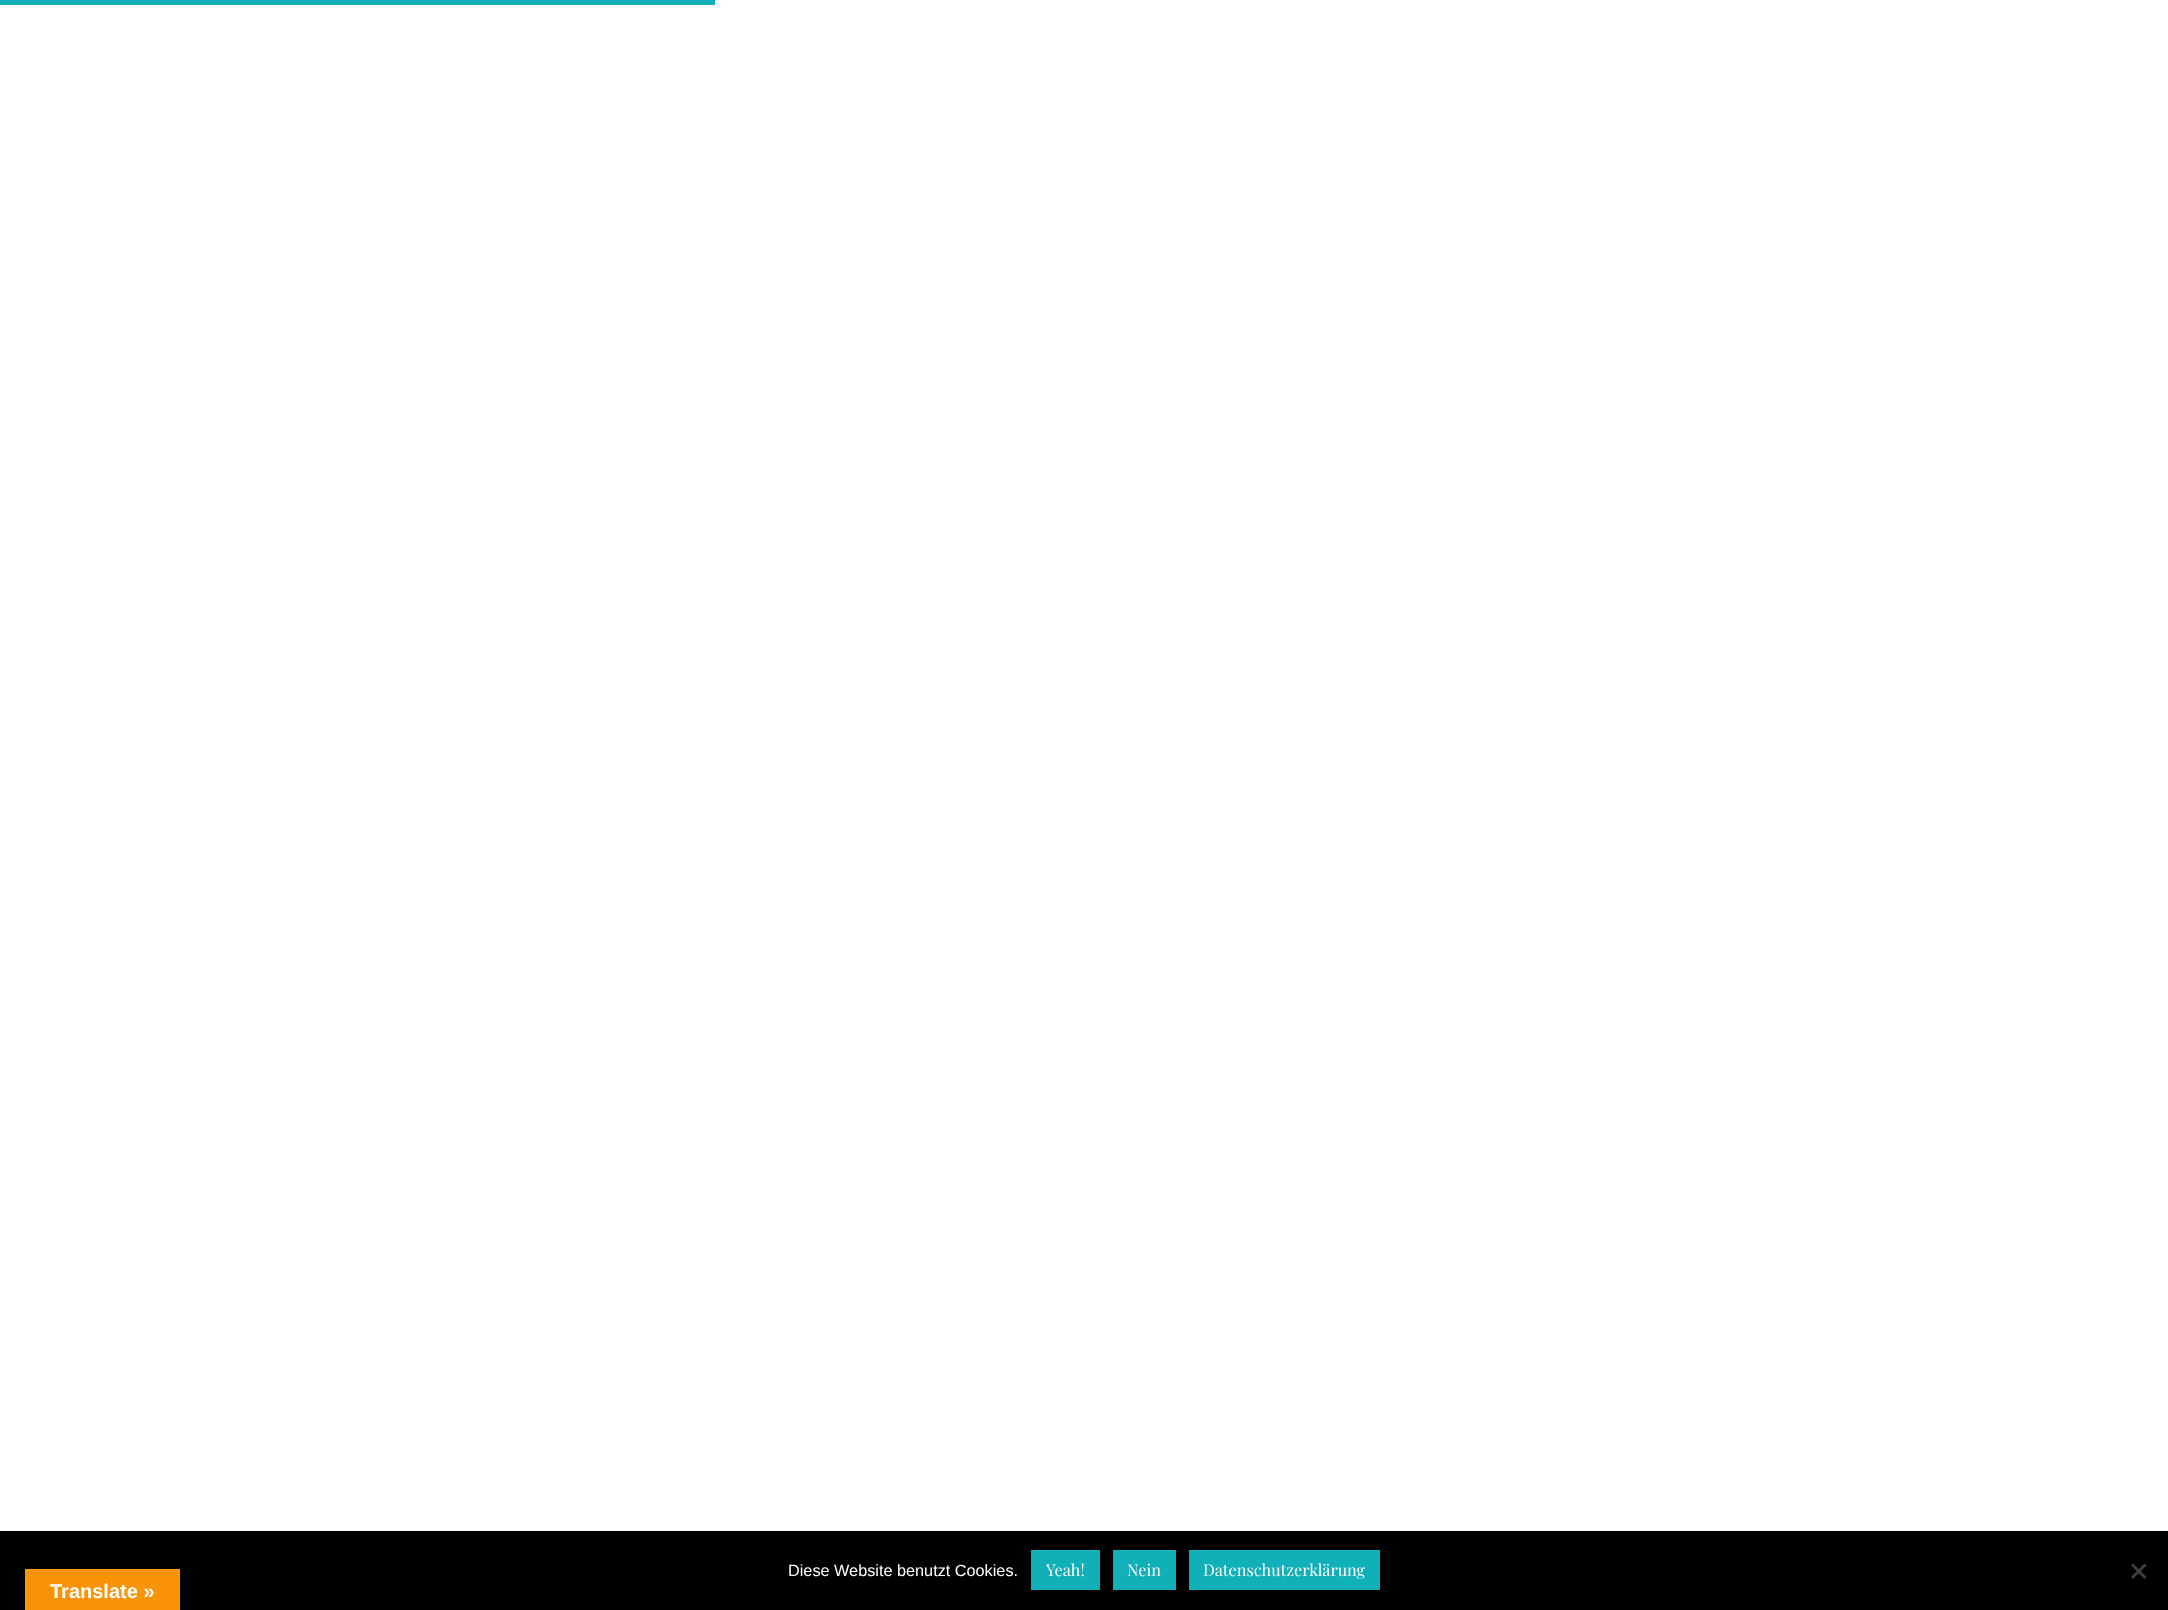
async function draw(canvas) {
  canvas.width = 2168;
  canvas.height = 1610;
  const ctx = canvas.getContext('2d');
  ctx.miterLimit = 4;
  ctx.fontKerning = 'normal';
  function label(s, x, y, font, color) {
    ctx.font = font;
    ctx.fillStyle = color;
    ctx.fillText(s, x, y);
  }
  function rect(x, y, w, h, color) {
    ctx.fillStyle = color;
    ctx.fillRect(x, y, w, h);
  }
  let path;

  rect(0, 0, 2168, 1610, '#fff');
  rect(0, 0, 715, 5, '#10b0b8');
  rect(0, 1531, 2168, 79, '#000');
  label('Diese Website benutzt Cookies.', 788, 1576, '16.25px Liberation Sans', '#fff');
  rect(1031, 1550, 69, 40, '#10b0b8');
  label('Yeah!', 1046, 1576, '16.25px Playfair Display', '#fff');
  rect(1113, 1550, 63, 40, '#10b0b8');
  label('Nein', 1127, 1576, '16.25px Playfair Display', '#fff');
  rect(1189, 1550, 191, 40, '#10b0b8');
  label('Datenschutzerklärung', 1203, 1576, '16.25px Playfair Display', '#fff');
  ctx.fillStyle = '#404040';
  path = new Path2D('M2144.5 1563.5L2146.5 1565.5L2133 1579L2131 1577Z');
  ctx.fill(path);
  path = new Path2D('M2131 1565.5L2133 1563.5L2146.5 1577L2144.5 1579Z');
  ctx.fill(path);
  rect(25, 1569, 155, 41, '#f89406');
  label('Translate »', 50, 1598, 'bold 20px Liberation Sans', '#fff');
}

draw(document.querySelector('canvas'));
